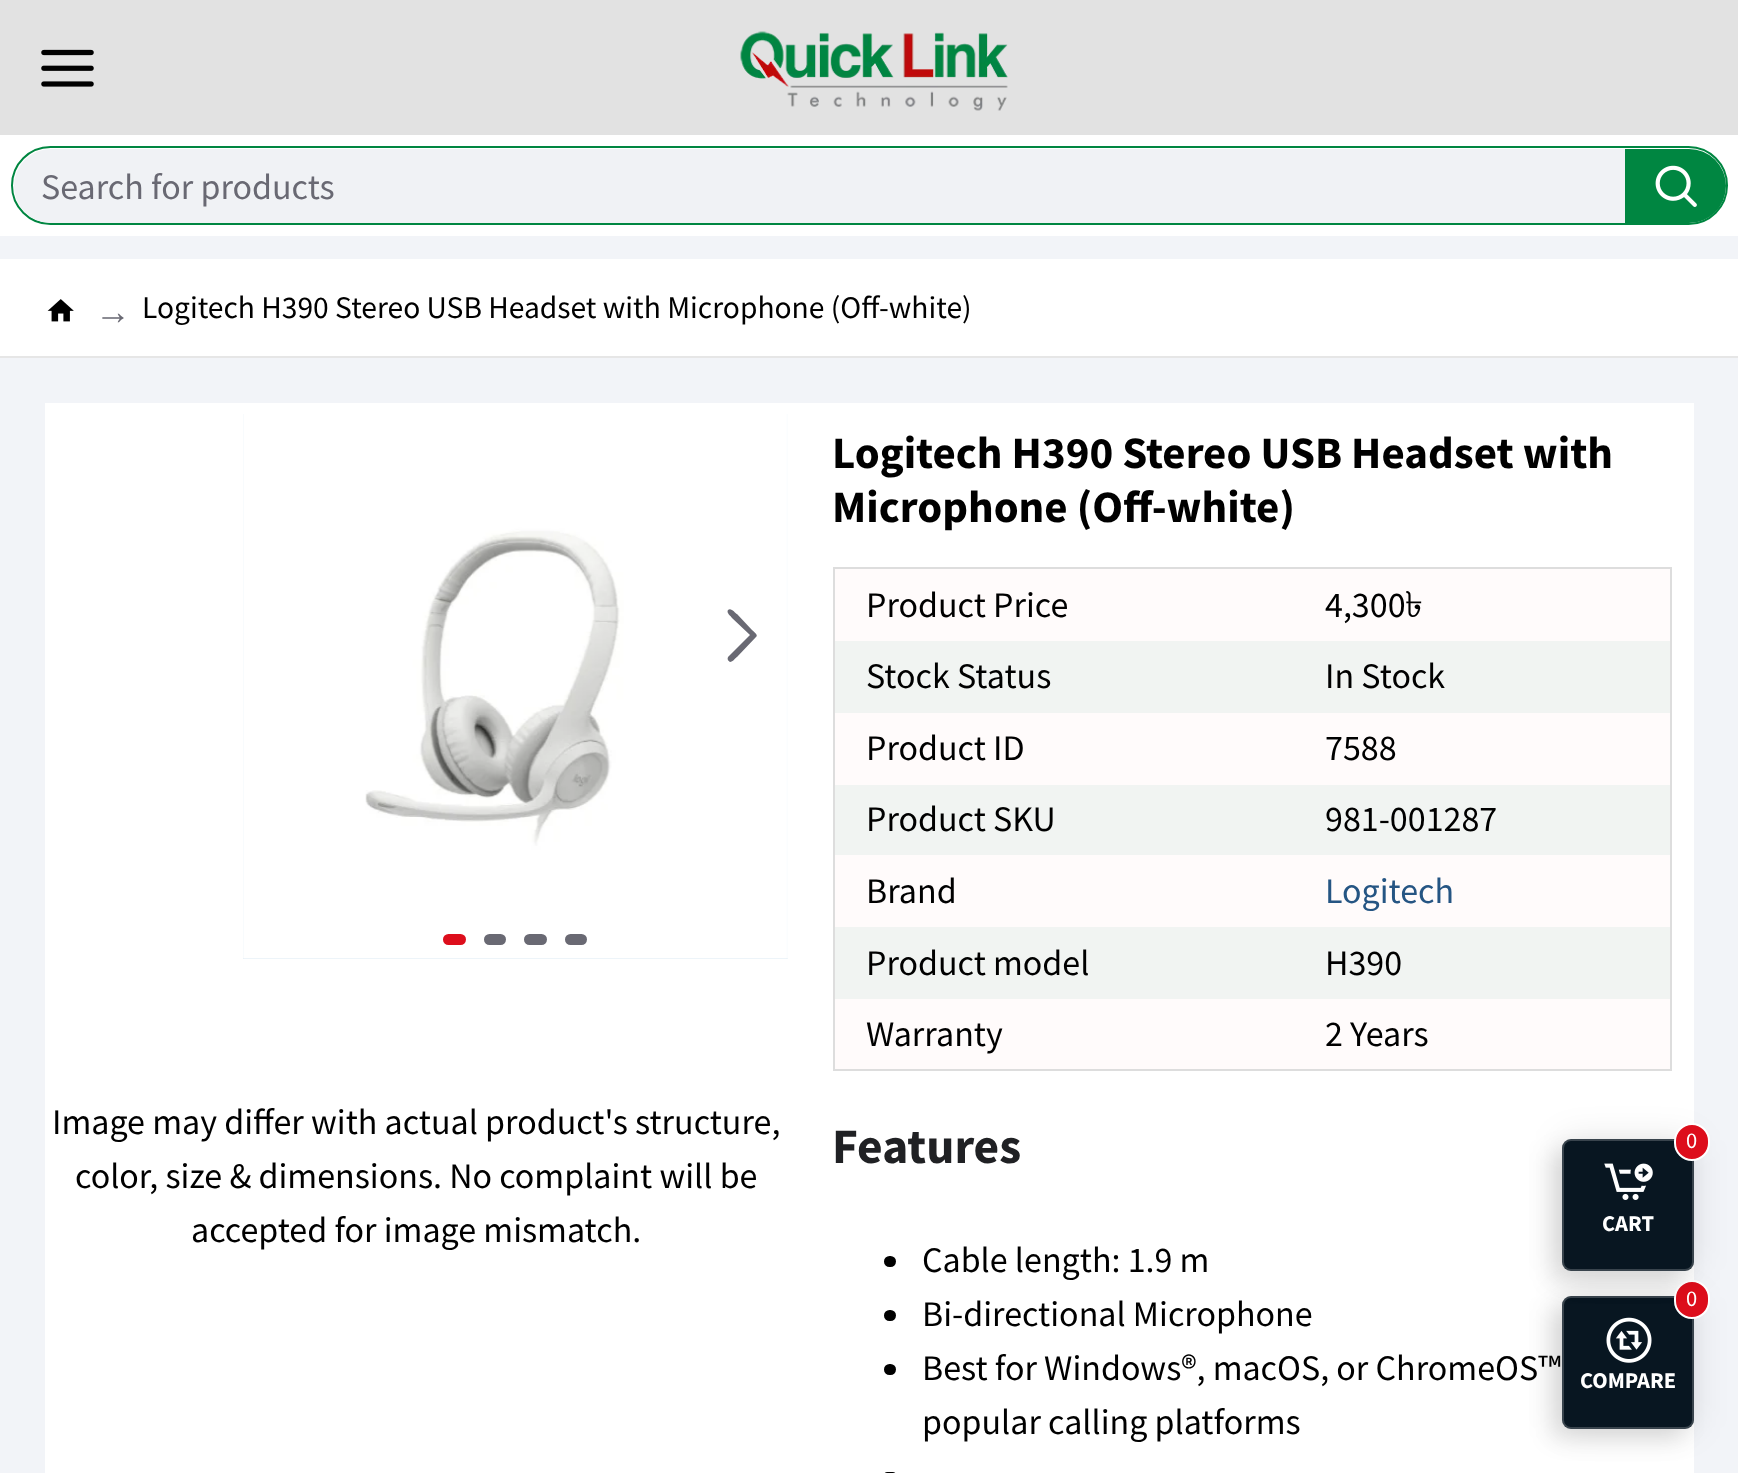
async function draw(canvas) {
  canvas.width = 1738;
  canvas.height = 1473;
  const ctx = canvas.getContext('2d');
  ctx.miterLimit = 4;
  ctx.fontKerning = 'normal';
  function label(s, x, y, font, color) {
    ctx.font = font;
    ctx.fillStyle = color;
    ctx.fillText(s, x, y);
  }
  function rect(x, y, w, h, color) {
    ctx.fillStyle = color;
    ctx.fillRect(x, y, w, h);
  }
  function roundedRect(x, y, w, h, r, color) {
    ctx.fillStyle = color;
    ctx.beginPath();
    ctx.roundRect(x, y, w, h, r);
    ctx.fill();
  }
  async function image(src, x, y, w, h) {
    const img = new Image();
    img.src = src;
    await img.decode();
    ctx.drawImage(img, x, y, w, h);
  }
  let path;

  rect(0, 0, 1738, 1473, '#f2f4f8');
  rect(0, 0, 1738, 135, '#e2e2e2');
  await image('assets/img1.png', 41, 49, 53, 38);
  await image('assets/img2.png', 740, 31, 268, 80);
  rect(0, 135, 1738, 101, '#fff');
  ctx.beginPath();
  ctx.roundRect(12, 147, 1715, 77, 38.5);
  ctx.strokeStyle = '#008641';
  ctx.lineWidth = 2;
  ctx.stroke();
  ctx.fillStyle = '#f0f2f5';
  ctx.beginPath();
  ctx.roundRect(14, 149, 1611, 74, [37, 0, 0, 37]);
  ctx.fill();
  label('Search for products', 41, 199, '36px Source Sans Pro', '#696973');
  ctx.fillStyle = '#008641';
  ctx.beginPath();
  ctx.roundRect(1625, 149, 101, 74, [0, 37, 37, 0]);
  ctx.fill();
  await image('assets/img3.png', 1655, 165, 42, 42);
  rect(0, 259, 1738, 97, '#fff');
  rect(0, 356, 1738, 2, '#e6e6e6');
  await image('assets/img4.png', 47, 299, 27, 23);
  label('→', 95, 324, '36px Liberation Serif', '#696973');
  label('Logitech H390 Stereo USB Headset with Microphone (Off-white)', 142, 318, '31.5px Source Sans Pro', '#000');
  rect(45, 403, 1649, 1070, '#fff');
  rect(243, 414, 545, 545, '#dbe8f2');
  await image('assets/img5.png', 243, 414, 545, 545);
  await image('assets/img6.png', 787, 414, 1, 545);
  ctx.fillStyle = '#696973';
  path = new Path2D('M756 637L737 657C735 658 733 662 730 662C728 661 727 659 728 657L750 635L732 618C731 616 726 613 728 610C731 607 735 613 737 614L752 630C753 631 759 635 756 637Z');
  ctx.fill(path);
  roundedRect(443, 934, 23, 11, 5.5, '#dd0e1c');
  roundedRect(484, 934, 22, 11, 5.5, '#696973');
  roundedRect(524, 934, 23, 11, 5.5, '#696973');
  roundedRect(565, 934, 22, 11, 5.5, '#696973');
  label('Image may differ with actual product\'s structure,', 52, 1134, '36px Source Sans Pro', '#000');
  label('color, size & dimensions. No complaint will be', 75, 1188, '36px Source Sans Pro', '#000');
  label('accepted for image mismatch.', 191, 1242, '36px Source Sans Pro', '#000');
  label('Logitech H390 Stereo USB Headset with', 832, 468, 'bold 45px Source Sans Pro', '#000');
  label('Microphone (Off-white)', 832, 522, 'bold 45px Source Sans Pro', '#000');
  ctx.strokeStyle = '#ddd';
  ctx.strokeRect(834, 568, 837, 502);
  rect(835, 569, 835, 72, '#fffbfb');
  label('Product Price', 866, 617, '36px Source Sans Pro', '#000');
  label('4,300', 1325, 617, '36px Source Sans Pro', '#000');
  label('৳', 1405, 617, '36px Lohit Bengali', '#000');
  rect(835, 641, 835, 72, '#f1f4f2');
  label('Stock Status', 866, 688, '36px Source Sans Pro', '#000');
  label('In Stock', 1325, 688, '36px Source Sans Pro', '#000');
  rect(835, 713, 835, 72, '#fffbfb');
  label('Product ID', 866, 760, '36px Source Sans Pro', '#000');
  label('7588', 1325, 760, '36px Source Sans Pro', '#000');
  rect(835, 785, 835, 70, '#f1f4f2');
  label('Product SKU', 866, 831, '36px Source Sans Pro', '#000');
  label('981-001287', 1325, 831, '36px Source Sans Pro', '#000');
  rect(835, 855, 835, 72, '#fffbfb');
  label('Brand', 866, 903, '36px Source Sans Pro', '#000');
  label('Logitech', 1325, 903, '36px Source Sans Pro', '#255583');
  rect(835, 927, 835, 72, '#f1f4f2');
  label('Product model', 866, 975, '36px Source Sans Pro', '#000');
  label('H390', 1325, 975, '36px Source Sans Pro', '#000');
  rect(835, 999, 835, 70, '#fffbfb');
  label('Warranty', 866, 1046, '36px Source Sans Pro', '#000');
  label('2 Years', 1325, 1046, '36px Source Sans Pro', '#000');
  label('Features', 832, 1163, 'bold 49.5px Source Sans Pro', '#202124');
  roundedRect(884, 1256, 12, 11, 5.5, '#000');
  label('Cable length: 1.9 m', 922, 1272, '36px Source Sans Pro', '#000');
  roundedRect(884, 1310, 12, 11, 5.5, '#000');
  label('Bi-directional Microphone', 922, 1326, '36px Source Sans Pro', '#000');
  roundedRect(884, 1364, 12, 11, 5.5, '#000');
  label('Best for Windows®, macOS, or ChromeOS™', 922, 1380, '36px Source Sans Pro', '#000');
  label('popular calling platforms', 922, 1434, '36px Source Sans Pro', '#000');
  roundedRect(884, 1472, 12, 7, 5.5, '#000');
  ctx.fillStyle = '#0000001a';
  ctx.filter = 'blur(11px)';
  ctx.beginPath();
  ctx.roundRect(1550, 1307, 133, 133, 9);
  ctx.fill();
  ctx.filter = 'none';
  ctx.filter = 'blur(17px)';
  ctx.beginPath();
  ctx.roundRect(1562, 1296, 132, 133, 9);
  ctx.fill();
  ctx.filter = 'none';
  roundedRect(1562, 1296, 132, 133, 9, '#081621');
  ctx.beginPath();
  ctx.roundRect(1563, 1297, 130, 131, 8);
  ctx.strokeStyle = '#ffffff33';
  ctx.stroke();
  ctx.fillStyle = '#dd0e1c';
  ctx.beginPath();
  ctx.roundRect(1675, 1281, 34, 37, 17);
  ctx.fill();
  ctx.strokeStyle = '#fff';
  ctx.stroke();
  ctx.fillStyle = '#0000001a';
  ctx.filter = 'blur(11px)';
  ctx.beginPath();
  ctx.roundRect(1550, 1150, 133, 133, 9);
  ctx.fill();
  ctx.filter = 'none';
  await image('assets/img8.png', 1606, 1317, 46, 46);
  ctx.filter = 'blur(17px)';
  ctx.beginPath();
  ctx.roundRect(1562, 1139, 132, 132, 9);
  ctx.fill();
  ctx.filter = 'none';
  roundedRect(1562, 1139, 132, 132, 9, '#081621');
  ctx.beginPath();
  ctx.roundRect(1563, 1140, 130, 130, 8);
  ctx.strokeStyle = '#ffffff33';
  ctx.stroke();
  ctx.fillStyle = '#dd0e1c';
  ctx.beginPath();
  ctx.roundRect(1675, 1124, 34, 36, 17);
  ctx.fill();
  ctx.strokeStyle = '#fff';
  ctx.stroke();
  label('0', 1686, 1148, '22.5px Source Sans Pro', '#fff');
  await image('assets/img7.png', 1604, 1163, 49, 37);
  label('CART', 1602, 1231, 'bold 22.5px Source Sans Pro', '#fff');
  label('0', 1686, 1306, '22.5px Source Sans Pro', '#fff');
  label('COMPARE', 1580, 1388, 'bold 22.5px Source Sans Pro', '#fff');
}

draw(document.querySelector('canvas'));
